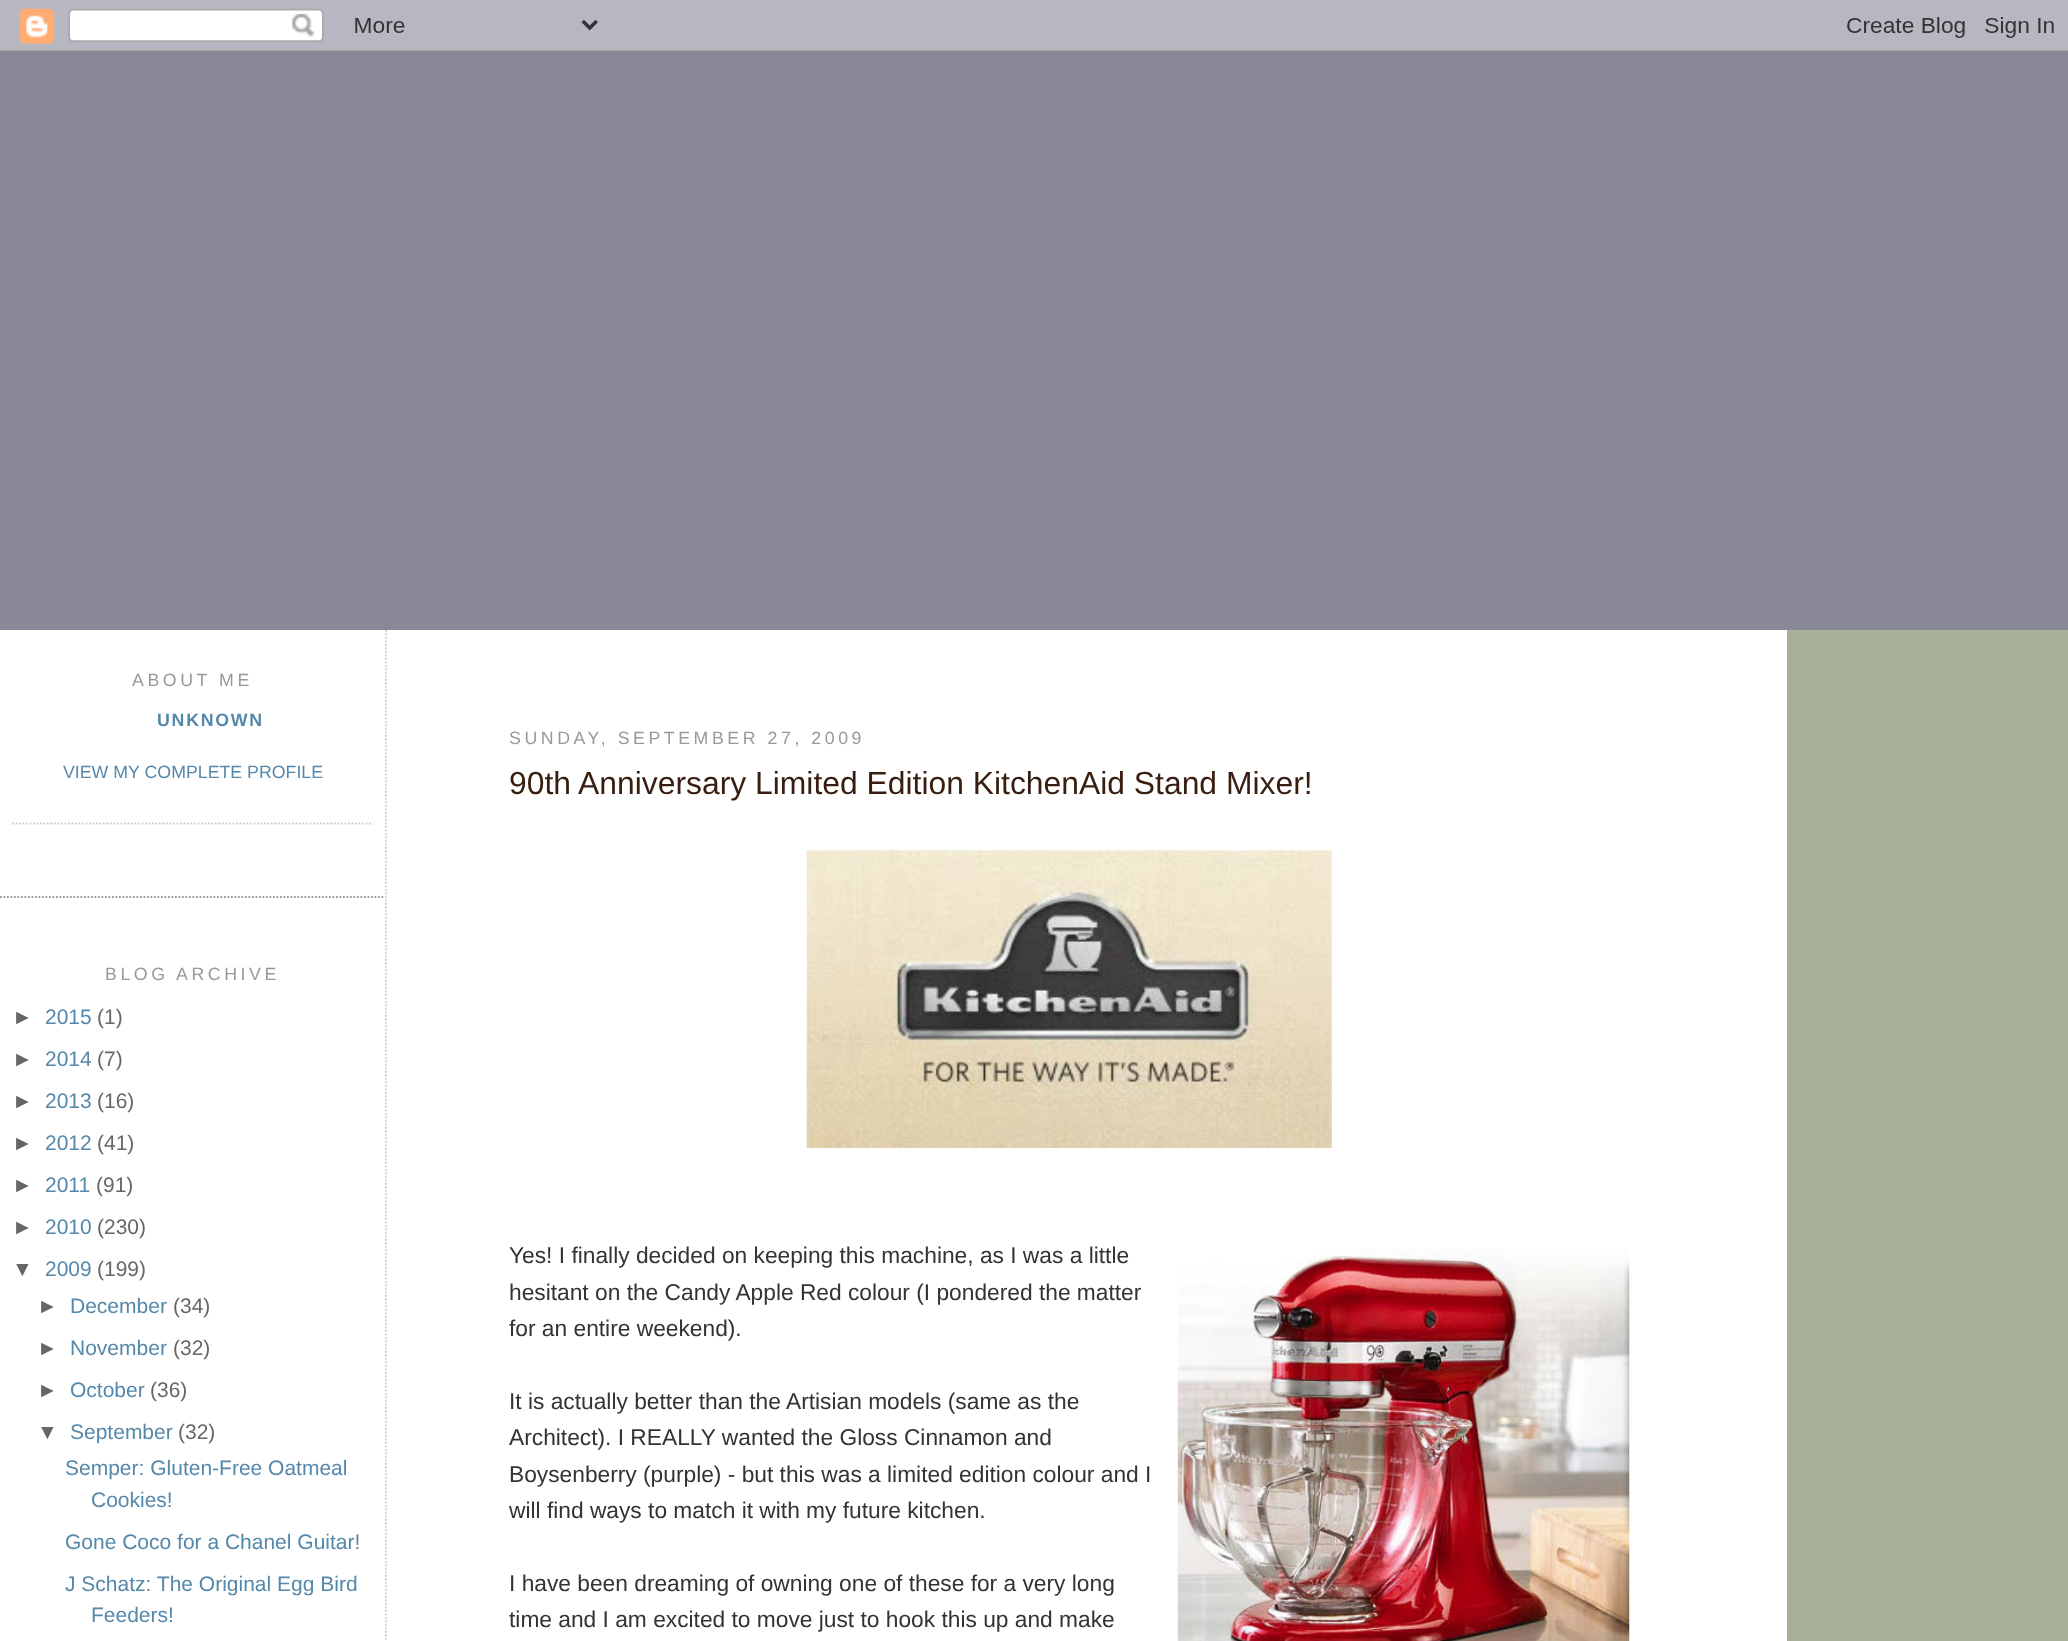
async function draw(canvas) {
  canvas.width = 2068;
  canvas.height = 1641;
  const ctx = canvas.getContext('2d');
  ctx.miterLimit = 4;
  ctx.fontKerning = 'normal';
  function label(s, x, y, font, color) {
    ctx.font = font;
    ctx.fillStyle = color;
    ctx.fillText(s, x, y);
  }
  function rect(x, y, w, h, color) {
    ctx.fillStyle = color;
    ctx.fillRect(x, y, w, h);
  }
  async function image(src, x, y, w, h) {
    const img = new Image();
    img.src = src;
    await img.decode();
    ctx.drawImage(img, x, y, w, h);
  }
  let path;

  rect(0, 0, 2068, 1641, '#889');
  await image('assets/img1.png', 0, 0, 2068, 53);
  rect(0, 630, 1787, 1011, '#fff');
  path = new Path2D('M386 630V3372');
  ctx.strokeStyle = '#ccc';
  ctx.lineWidth = 1.8;
  ctx.setLineDash([1.75, 1.75]);
  ctx.stroke(path);
  path = new Path2D('M12 823.5H373');
  ctx.stroke(path);
  ctx.letterSpacing = '3.55px';
  label('ABOUT ME', 132, 686, '17.75px Liberation Sans', '#999');
  ctx.letterSpacing = '1.75px';
  label('UNKNOWN', 157, 726, 'bold 17.75px Liberation Sans', '#58a');
  ctx.letterSpacing = '0px';
  label('VIEW MY COMPLETE PROFILE', 63, 778, '17.75px Liberation Sans', '#58a');
  path = new Path2D('M0 897H385');
  ctx.strokeStyle = '#999';
  ctx.stroke(path);
  ctx.letterSpacing = '3.55px';
  label('BLOG ARCHIVE', 105, 980, '17.75px Liberation Sans', '#999');
  ctx.letterSpacing = '0px';
  label('►', 12, 1024, '21px Liberation Sans', '#666');
  label('2015', 45, 1024, '21px Liberation Sans', '#58a');
  label('(1)', 97, 1024, '21px Liberation Sans', '#666');
  label('►', 12, 1066, '21px Liberation Sans', '#666');
  label('2014', 45, 1066, '21px Liberation Sans', '#58a');
  label('(7)', 97, 1066, '21px Liberation Sans', '#666');
  label('►', 12, 1108, '21px Liberation Sans', '#666');
  label('2013', 45, 1108, '21px Liberation Sans', '#58a');
  label('(16)', 97, 1108, '21px Liberation Sans', '#666');
  label('►', 12, 1150, '21px Liberation Sans', '#666');
  label('2012', 45, 1150, '21px Liberation Sans', '#58a');
  label('(41)', 97, 1150, '21px Liberation Sans', '#666');
  label('►', 12, 1192, '21px Liberation Sans', '#666');
  label('2011', 45, 1192, '21px Liberation Sans', '#58a');
  label('(91)', 96, 1192, '21px Liberation Sans', '#666');
  label('►', 12, 1234, '21px Liberation Sans', '#666');
  label('2010', 45, 1234, '21px Liberation Sans', '#58a');
  label('(230)', 97, 1234, '21px Liberation Sans', '#666');
  label('▼', 12, 1276, '21px Liberation Sans', '#666');
  label('2009', 45, 1276, '21px Liberation Sans', '#58a');
  label('(199)', 97, 1276, '21px Liberation Sans', '#666');
  label('►', 37, 1313, '21px Liberation Sans', '#666');
  label('December', 70, 1313, '21px Liberation Sans', '#58a');
  label('(34)', 173, 1313, '21px Liberation Sans', '#666');
  label('►', 37, 1355, '21px Liberation Sans', '#666');
  label('November', 70, 1355, '21px Liberation Sans', '#58a');
  label('(32)', 173, 1355, '21px Liberation Sans', '#666');
  label('►', 37, 1397, '21px Liberation Sans', '#666');
  label('October', 70, 1397, '21px Liberation Sans', '#58a');
  label('(36)', 150, 1397, '21px Liberation Sans', '#666');
  label('▼', 37, 1439, '21px Liberation Sans', '#666');
  label('September', 70, 1439, '21px Liberation Sans', '#58a');
  label('(32)', 178, 1439, '21px Liberation Sans', '#666');
  label('Semper: Gluten-Free Oatmeal', 65, 1475, '21px Liberation Sans', '#58a');
  label('Cookies!', 91, 1507, '21px Liberation Sans', '#58a');
  label('Gone Coco for a Chanel Guitar!', 65, 1549, '21px Liberation Sans', '#58a');
  label('J Schatz: The Original Egg Bird', 65, 1591, '21px Liberation Sans', '#58a');
  label('Feeders!', 91, 1622, '21px Liberation Sans', '#58a');
  ctx.letterSpacing = '3.55px';
  label('SUNDAY, SEPTEMBER 27, 2009', 509, 744, '17.75px Liberation Sans', '#999');
  ctx.letterSpacing = '0px';
  label('90th Anniversary Limited Edition KitchenAid Stand Mixer!', 509, 794, '31.85px Liberation Sans', '#381e11');
  await image('assets/img2.png', 806, 849, 526, 299);
  label('Yes! I finally decided on keeping this machine, as I was a little', 509, 1263, '22.75px Liberation Sans', '#333');
  await image('assets/img3.png', 1177, 1248, 453, 393);
  label('hesitant on the Candy Apple Red colour (I pondered the matter', 509, 1300, '22.75px Liberation Sans', '#333');
  label('for an entire weekend).', 509, 1336, '22.75px Liberation Sans', '#333');
  label('It is actually better than the Artisian models (same as the', 509, 1409, '22.75px Liberation Sans', '#333');
  label('Architect). I REALLY wanted the Gloss Cinnamon and', 509, 1445, '22.75px Liberation Sans', '#333');
  label('Boysenberry (purple) - but this was a limited edition colour and I', 509, 1482, '22.75px Liberation Sans', '#333');
  label('will find ways to match it with my future kitchen.', 509, 1518, '22.75px Liberation Sans', '#333');
  label('I have been dreaming of owning one of these for a very long', 509, 1591, '22.75px Liberation Sans', '#333');
  label('time and I am excited to move just to hook this up and make', 509, 1627, '22.75px Liberation Sans', '#333');
  rect(1787, 630, 281, 1011, '#a7b197');
}

draw(document.querySelector('canvas'));
